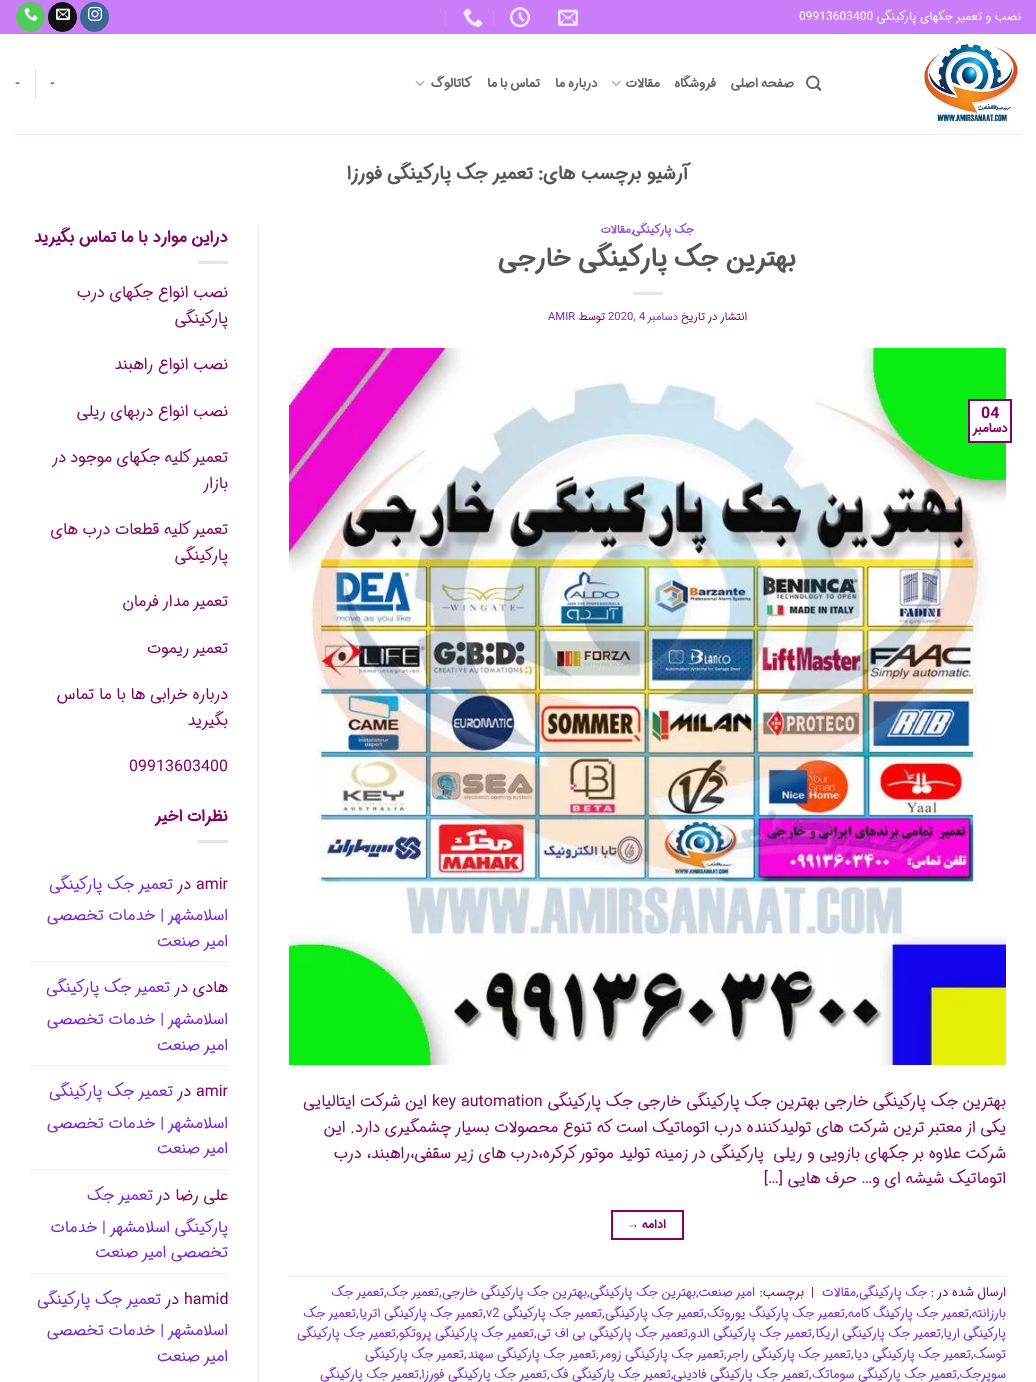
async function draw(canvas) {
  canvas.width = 1036;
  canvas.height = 1382;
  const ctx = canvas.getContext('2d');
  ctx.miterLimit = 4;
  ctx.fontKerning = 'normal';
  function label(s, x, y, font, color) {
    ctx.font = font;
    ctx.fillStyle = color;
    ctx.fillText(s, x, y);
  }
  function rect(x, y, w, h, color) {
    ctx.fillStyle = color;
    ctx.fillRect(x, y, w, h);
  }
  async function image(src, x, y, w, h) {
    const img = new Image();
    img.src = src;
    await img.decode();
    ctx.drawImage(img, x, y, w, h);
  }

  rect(0, 0, 1036, 1382, '#fff');
  rect(0, 0, 1036, 34, '#ca7df9');
  ctx.direction = 'rtl';
  label('نصب و تعمیر جکهای پارکینگی', 1021, 20, '12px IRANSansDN', '#fff');
  ctx.direction = 'ltr';
  label('09913603400', 799, 20, '12px IRANSansDN', '#fff');
  await image('assets/img1.png', 558, 9, 20, 17);
  await image('assets/img2.png', 510, 7, 20, 21);
  rect(493, 10, 1, 15, '#d597fa');
  await image('assets/img3.png', 463, 8, 20, 20);
  rect(445, 10, 1, 15, '#d597fa');
  ctx.fillStyle = '#3b6994';
  ctx.beginPath();
  ctx.roundRect(80.5, 2.5, 28, 29, 14);
  ctx.fill();
  ctx.strokeStyle = '#3b6994';
  ctx.stroke();
  await image('assets/img4.png', 88, 6, 14, 15);
  ctx.fillStyle = '#111';
  ctx.beginPath();
  ctx.roundRect(48.5, 2.5, 28, 29, 14);
  ctx.fill();
  ctx.strokeStyle = '#111';
  ctx.stroke();
  await image('assets/img5.png', 56, 8, 14, 12);
  ctx.fillStyle = '#51cb5a';
  ctx.beginPath();
  ctx.roundRect(16.5, 2.5, 28, 29, 14);
  ctx.fill();
  ctx.strokeStyle = '#51cb5a';
  ctx.stroke();
  await image('assets/img6.png', 24, 7, 14, 14);
  await image('assets/img7.png', 924, 43, 95, 86);
  await image('assets/img8.png', 806, 75, 16, 16);
  ctx.letterSpacing = '0.25px';
  ctx.wordSpacing = '-1px';
  ctx.direction = 'rtl';
  label('صفحه اصلی', 794, 87, 'bold 12.75px IRANSansDN', '#656565');
  ctx.wordSpacing = '0px';
  label('فروشگاه', 716, 87, 'bold 12.75px IRANSansDN', '#656565');
  label('مقالات', 660, 87, 'bold 12.75px IRANSansDN', '#656565');
  await image('assets/img9.png', 611, 80, 10, 6);
  ctx.wordSpacing = '-1px';
  label('درباره ما', 598, 87, 'bold 12.75px IRANSansDN', '#656565');
  label('تماس با ما', 540, 87, 'bold 12.75px IRANSansDN', '#656565');
  ctx.wordSpacing = '0px';
  label('کاتالوگ', 472, 87, 'bold 12.75px IRANSansDN', '#656565');
  await image('assets/img9.png', 415, 80, 10, 6);
  ctx.direction = 'ltr';
  label('-', 50, 87, 'bold 12.75px IRANSansDN', '#656565');
  rect(35, 69, 1, 30, '#e6e6e6');
  label('-', 15, 87, 'bold 12.75px IRANSansDN', '#656565');
  rect(15, 134, 1006, 1, '#f3e6ef');
  ctx.letterSpacing = '0px';
  ctx.direction = 'rtl';
  label('آرشیو برچسب های:', 689, 179, 'bold 18.4px IRANSansDN', '#555');
  label('تعمیر جک پارکینگی فورزا', 533, 179, 'bold 18.4px IRANSansDN', '#555');
  label('جک پارکینگی', 694, 233, 'bold 11.25px IRANSansDN', '#9553d5');
  ctx.direction = 'ltr';
  label(',', 631, 233, 'bold 11.25px IRANSansDN', '#777');
  ctx.direction = 'rtl';
  label('مقالات', 631, 233, 'bold 11.25px IRANSansDN', '#9553d5');
  label('بهترین جک پارکینگی خارجی', 796, 266, 'bold 25.6px IRANSansDN', '#555');
  rect(633, 292, 30, 3, '#e6e6e6');
  label('انتشار در تاریخ', 747, 320, '11.25px IRANSansDN', '#820263');
  label('دسامبر', 678, 320, '11.25px IRANSansDN', '#7a28cb');
  ctx.direction = 'ltr';
  label('2020, 4', 608, 320, '11.25px IRANSansDN', '#7a28cb');
  ctx.direction = 'rtl';
  label('توسط', 605, 320, '11.25px IRANSansDN', '#820263');
  ctx.direction = 'ltr';
  label('AMIR', 548, 320, '11.25px IRANSansDN', '#7a28cb');
  await image('assets/img10.png', 289, 348, 717, 717);
  rect(970, 401, 36, 40, '#fff');
  ctx.strokeStyle = '#820263';
  ctx.lineWidth = 2;
  ctx.strokeRect(969, 400, 42, 42);
  label('04', 981, 418, 'bold 16px IRANSansDN', '#820263');
  ctx.direction = 'rtl';
  label('دسامبر', 1008, 432, 'bold 12.75px IRANSansDN', '#820263');
  label('بهترین جک پارکینگی خارجی بهترین جک پارکینگی خارجی جک پارکینگی', 1006, 1106, '16px IRANSansDN', '#820263');
  ctx.direction = 'ltr';
  label('key automation', 432, 1106, '16px IRANSansDN', '#820263');
  ctx.direction = 'rtl';
  label('این شرکت ایتالیایی', 427, 1106, '16px IRANSansDN', '#820263');
  label('یکی از معتبر ترین شرکت های تولیدکننده درب اتوماتیک است که تنوع محصولات بسیار چشمگیری دارد. این', 1006, 1132, '16px IRANSansDN', '#820263');
  label('شرکت علاوه بر جکهای بازویی و ریلی  پارکینگی در زمینه تولید موتور کرکره،درب های زیر سقفی،راهبند، درب', 1006, 1158, '16px IRANSansDN', '#820263');
  label('اتوماتیک شیشه ای و… حرف هایی […]', 1006, 1183, '16px IRANSansDN', '#820263');
  ctx.strokeRect(612, 1211, 71, 28);
  ctx.letterSpacing = '0.5px';
  label('ادامه', 666, 1228, 'bold 12px IRANSansDN', '#820263');
  ctx.direction = 'ltr';
  label('→', 627, 1228, 'bold 12px Liberation Sans', '#820263');
  rect(289, 1276, 717, 1, '#ececec');
  ctx.letterSpacing = '0px';
  ctx.direction = 'rtl';
  label('ارسال شده در :', 1006, 1296, '12.75px IRANSansDN', '#820263');
  label('جک پارکینگی', 927, 1296, '12.75px IRANSansDN', '#7a28cb');
  ctx.direction = 'ltr';
  label(',', 856, 1296, '12.75px IRANSansDN', '#820263');
  ctx.direction = 'rtl';
  label('مقالات', 856, 1296, '12.75px IRANSansDN', '#7a28cb');
  ctx.direction = 'ltr';
  label('|', 811, 1296, '12.75px IRANSansDN', '#820263');
  ctx.direction = 'rtl';
  label('برچسب:', 804, 1296, '12.75px IRANSansDN', '#820263');
  label('امیر صنعت', 755, 1296, '12.75px IRANSansDN', '#7a28cb');
  ctx.direction = 'ltr';
  label(',', 696, 1296, '12.75px IRANSansDN', '#820263');
  ctx.direction = 'rtl';
  label('بهترین جک پارکینگی', 696, 1296, '12.75px IRANSansDN', '#7a28cb');
  ctx.direction = 'ltr';
  label(',', 587, 1296, '12.75px IRANSansDN', '#820263');
  ctx.direction = 'rtl';
  label('بهترین جک پارکینگی خارجی', 587, 1296, '12.75px IRANSansDN', '#7a28cb');
  ctx.direction = 'ltr';
  label(',', 439, 1296, '12.75px IRANSansDN', '#820263');
  ctx.direction = 'rtl';
  label('تعمیر جک', 439, 1296, '12.75px IRANSansDN', '#7a28cb');
  ctx.direction = 'ltr';
  label(',', 384, 1296, '12.75px IRANSansDN', '#820263');
  ctx.direction = 'rtl';
  label('تعمیر جک', 384, 1296, '12.75px IRANSansDN', '#7a28cb');
  label('بارزانته', 1006, 1317, '12.75px IRANSansDN', '#7a28cb');
  ctx.direction = 'ltr';
  label(',', 969, 1317, '12.75px IRANSansDN', '#820263');
  ctx.direction = 'rtl';
  label('تعمیر جک پارکینگ کامه', 969, 1317, '12.75px IRANSansDN', '#7a28cb');
  ctx.direction = 'ltr';
  label(',', 845, 1317, '12.75px IRANSansDN', '#820263');
  ctx.direction = 'rtl';
  label('تعمیر جک پارکینگ یوروتک', 845, 1317, '12.75px IRANSansDN', '#7a28cb');
  ctx.direction = 'ltr';
  label(',', 704, 1317, '12.75px IRANSansDN', '#820263');
  ctx.direction = 'rtl';
  label('تعمیر جک پارکینگی', 704, 1317, '12.75px IRANSansDN', '#7a28cb');
  ctx.direction = 'ltr';
  label(',', 602, 1317, '12.75px IRANSansDN', '#820263');
  ctx.direction = 'rtl';
  label('تعمیر جک پارکینگی', 602, 1317, '12.75px IRANSansDN', '#7a28cb');
  ctx.direction = 'ltr';
  label('v2', 486, 1317, '12.75px IRANSansDN', '#7a28cb');
  label(',', 483, 1317, '12.75px IRANSansDN', '#820263');
  ctx.direction = 'rtl';
  label('تعمیر جک پارکینگی اتریا', 483, 1317, '12.75px IRANSansDN', '#7a28cb');
  ctx.direction = 'ltr';
  label(',', 356, 1317, '12.75px IRANSansDN', '#820263');
  ctx.direction = 'rtl';
  label('تعمیر جک', 356, 1317, '12.75px IRANSansDN', '#7a28cb');
  label('پارکینگی اریا', 1006, 1337, '12.75px IRANSansDN', '#7a28cb');
  ctx.direction = 'ltr';
  label(',', 941, 1337, '12.75px IRANSansDN', '#820263');
  ctx.direction = 'rtl';
  label('تعمیر جک پارکینگی اریکا', 941, 1337, '12.75px IRANSansDN', '#7a28cb');
  ctx.direction = 'ltr';
  label(',', 812, 1337, '12.75px IRANSansDN', '#820263');
  ctx.direction = 'rtl';
  label('تعمیر جک پارکینگی الدو', 812, 1337, '12.75px IRANSansDN', '#7a28cb');
  ctx.direction = 'ltr';
  label(',', 688, 1337, '12.75px IRANSansDN', '#820263');
  ctx.direction = 'rtl';
  label('تعمیر جک پارکینگی بی اف تی', 688, 1337, '12.75px IRANSansDN', '#7a28cb');
  ctx.direction = 'ltr';
  label(',', 534, 1337, '12.75px IRANSansDN', '#820263');
  ctx.direction = 'rtl';
  label('تعمیر جک پارکینگی پروتکو', 534, 1337, '12.75px IRANSansDN', '#7a28cb');
  ctx.direction = 'ltr';
  label(',', 396, 1337, '12.75px IRANSansDN', '#820263');
  ctx.direction = 'rtl';
  label('تعمیر جک پارکینگی', 396, 1337, '12.75px IRANSansDN', '#7a28cb');
  label('توسک', 1006, 1358, '12.75px IRANSansDN', '#7a28cb');
  ctx.direction = 'ltr';
  label(',', 971, 1358, '12.75px IRANSansDN', '#820263');
  ctx.direction = 'rtl';
  label('تعمیر جک پارکینگی دیا', 971, 1358, '12.75px IRANSansDN', '#7a28cb');
  ctx.direction = 'ltr';
  label(',', 851, 1358, '12.75px IRANSansDN', '#820263');
  ctx.direction = 'rtl';
  label('تعمیر جک پارکینگی راجر', 851, 1358, '12.75px IRANSansDN', '#7a28cb');
  ctx.direction = 'ltr';
  label(',', 724, 1358, '12.75px IRANSansDN', '#820263');
  ctx.direction = 'rtl';
  label('تعمیر جک پارکینگی زومر', 724, 1358, '12.75px IRANSansDN', '#7a28cb');
  ctx.direction = 'ltr';
  label(',', 596, 1358, '12.75px IRANSansDN', '#820263');
  ctx.direction = 'rtl';
  label('تعمیر جک پارکینگی سهند', 596, 1358, '12.75px IRANSansDN', '#7a28cb');
  ctx.direction = 'ltr';
  label(',', 464, 1358, '12.75px IRANSansDN', '#820263');
  ctx.direction = 'rtl';
  label('تعمیر جک پارکینگی', 464, 1358, '12.75px IRANSansDN', '#7a28cb');
  label('سوپرجک', 1006, 1378, '12.75px IRANSansDN', '#7a28cb');
  ctx.direction = 'ltr';
  label(',', 957, 1378, '12.75px IRANSansDN', '#820263');
  ctx.direction = 'rtl';
  label('تعمیر جک پارکینگی سوماتک', 957, 1378, '12.75px IRANSansDN', '#7a28cb');
  ctx.direction = 'ltr';
  label(',', 809, 1378, '12.75px IRANSansDN', '#820263');
  ctx.direction = 'rtl';
  label('تعمیر جک پارکینگی فادینی', 809, 1378, '12.75px IRANSansDN', '#7a28cb');
  ctx.direction = 'ltr';
  label(',', 671, 1378, '12.75px IRANSansDN', '#820263');
  ctx.direction = 'rtl';
  label('تعمیر جک پارکینگی فک', 671, 1378, '12.75px IRANSansDN', '#7a28cb');
  ctx.direction = 'ltr';
  label(',', 547, 1378, '12.75px IRANSansDN', '#820263');
  ctx.direction = 'rtl';
  label('تعمیر جک پارکینگی فورزا', 547, 1378, '12.75px IRANSansDN', '#7a28cb');
  ctx.direction = 'ltr';
  label(',', 419, 1378, '12.75px IRANSansDN', '#820263');
  ctx.direction = 'rtl';
  label('تعمیر جک پارکینگی', 419, 1378, '12.75px IRANSansDN', '#7a28cb');
  rect(258, 225, 1, 1157, '#ececec');
  label('دراین موارد با ما تماس بگیرید', 228, 242, 'bold 16px IRANSansDN', '#820263');
  rect(198, 261, 30, 3, '#e6e6e6');
  label('نصب انواع جکهای درب', 228, 297, '16px IRANSansDN', '#820263');
  label('پارکینگی', 228, 323, '16px IRANSansDN', '#820263');
  label('نصب انواع راهبند', 228, 369, '16px IRANSansDN', '#820263');
  label('نصب انواع دربهای ریلی', 228, 416, '16px IRANSansDN', '#820263');
  ctx.wordSpacing = '-0.5px';
  label('تعمیر کلیه جکهای موجود در', 228, 462, '16px IRANSansDN', '#820263');
  ctx.wordSpacing = '0px';
  label('بازار', 228, 488, '16px IRANSansDN', '#820263');
  label('تعمیر کلیه قطعات درب های', 228, 534, '16px IRANSansDN', '#820263');
  label('پارکینگی', 228, 560, '16px IRANSansDN', '#820263');
  label('تعمیر مدار فرمان', 228, 606, '16px IRANSansDN', '#820263');
  label('تعمیر ریموت', 228, 653, '16px IRANSansDN', '#820263');
  label('درباره خرابی ها با ما تماس', 228, 699, '16px IRANSansDN', '#820263');
  label('بگیرید', 228, 725, '16px IRANSansDN', '#820263');
  ctx.direction = 'ltr';
  label('09913603400', 129, 771, '16px IRANSansDN', '#820263');
  ctx.direction = 'rtl';
  label('نظرات اخیر', 228, 821, 'bold 16px IRANSansDN', '#820263');
  rect(198, 840, 30, 3, '#e6e6e6');
  ctx.direction = 'ltr';
  label('amir', 196, 889, '16px IRANSansDN', '#820263');
  ctx.direction = 'rtl';
  label('در', 191, 889, '16px IRANSansDN', '#820263');
  label('تعمیر جک پارکینگی', 173, 889, '16px IRANSansDN', '#7a28cb');
  label('اسلامشهر | خدمات تخصصی', 228, 920, '16px IRANSansDN', '#7a28cb');
  label('امیر صنعت', 228, 946, '16px IRANSansDN', '#7a28cb');
  rect(30, 961, 198, 1, '#ececec');
  label('هادی', 228, 992, '16px IRANSansDN', '#820263');
  label('در', 188, 992, '16px IRANSansDN', '#820263');
  label('تعمیر جک پارکینگی', 170, 992, '16px IRANSansDN', '#7a28cb');
  label('اسلامشهر | خدمات تخصصی', 228, 1024, '16px IRANSansDN', '#7a28cb');
  label('امیر صنعت', 228, 1050, '16px IRANSansDN', '#7a28cb');
  rect(30, 1065, 198, 1, '#ececec');
  ctx.direction = 'ltr';
  label('amir', 196, 1096, '16px IRANSansDN', '#820263');
  ctx.direction = 'rtl';
  label('در', 191, 1096, '16px IRANSansDN', '#820263');
  label('تعمیر جک پارکینگی', 173, 1096, '16px IRANSansDN', '#7a28cb');
  label('اسلامشهر | خدمات تخصصی', 228, 1128, '16px IRANSansDN', '#7a28cb');
  label('امیر صنعت', 228, 1153, '16px IRANSansDN', '#7a28cb');
  rect(30, 1169, 198, 1, '#ececec');
  label('علی رضا', 228, 1200, '16px IRANSansDN', '#820263');
  label('در', 170, 1200, '16px IRANSansDN', '#820263');
  label('تعمیر جک', 153, 1200, '16px IRANSansDN', '#7a28cb');
  label('پارکینگی اسلامشهر | خدمات', 228, 1232, '16px IRANSansDN', '#7a28cb');
  label('تخصصی امیر صنعت', 228, 1257, '16px IRANSansDN', '#7a28cb');
  rect(30, 1273, 198, 1, '#ececec');
  ctx.direction = 'ltr';
  label('hamid', 184, 1304, '16px IRANSansDN', '#820263');
  ctx.direction = 'rtl';
  label('در', 179, 1304, '16px IRANSansDN', '#820263');
  label('تعمیر جک پارکینگی', 161, 1304, '16px IRANSansDN', '#7a28cb');
  label('اسلامشهر | خدمات تخصصی', 228, 1335, '16px IRANSansDN', '#7a28cb');
  label('امیر صنعت', 228, 1361, '16px IRANSansDN', '#7a28cb');
}

draw(document.querySelector('canvas'));
